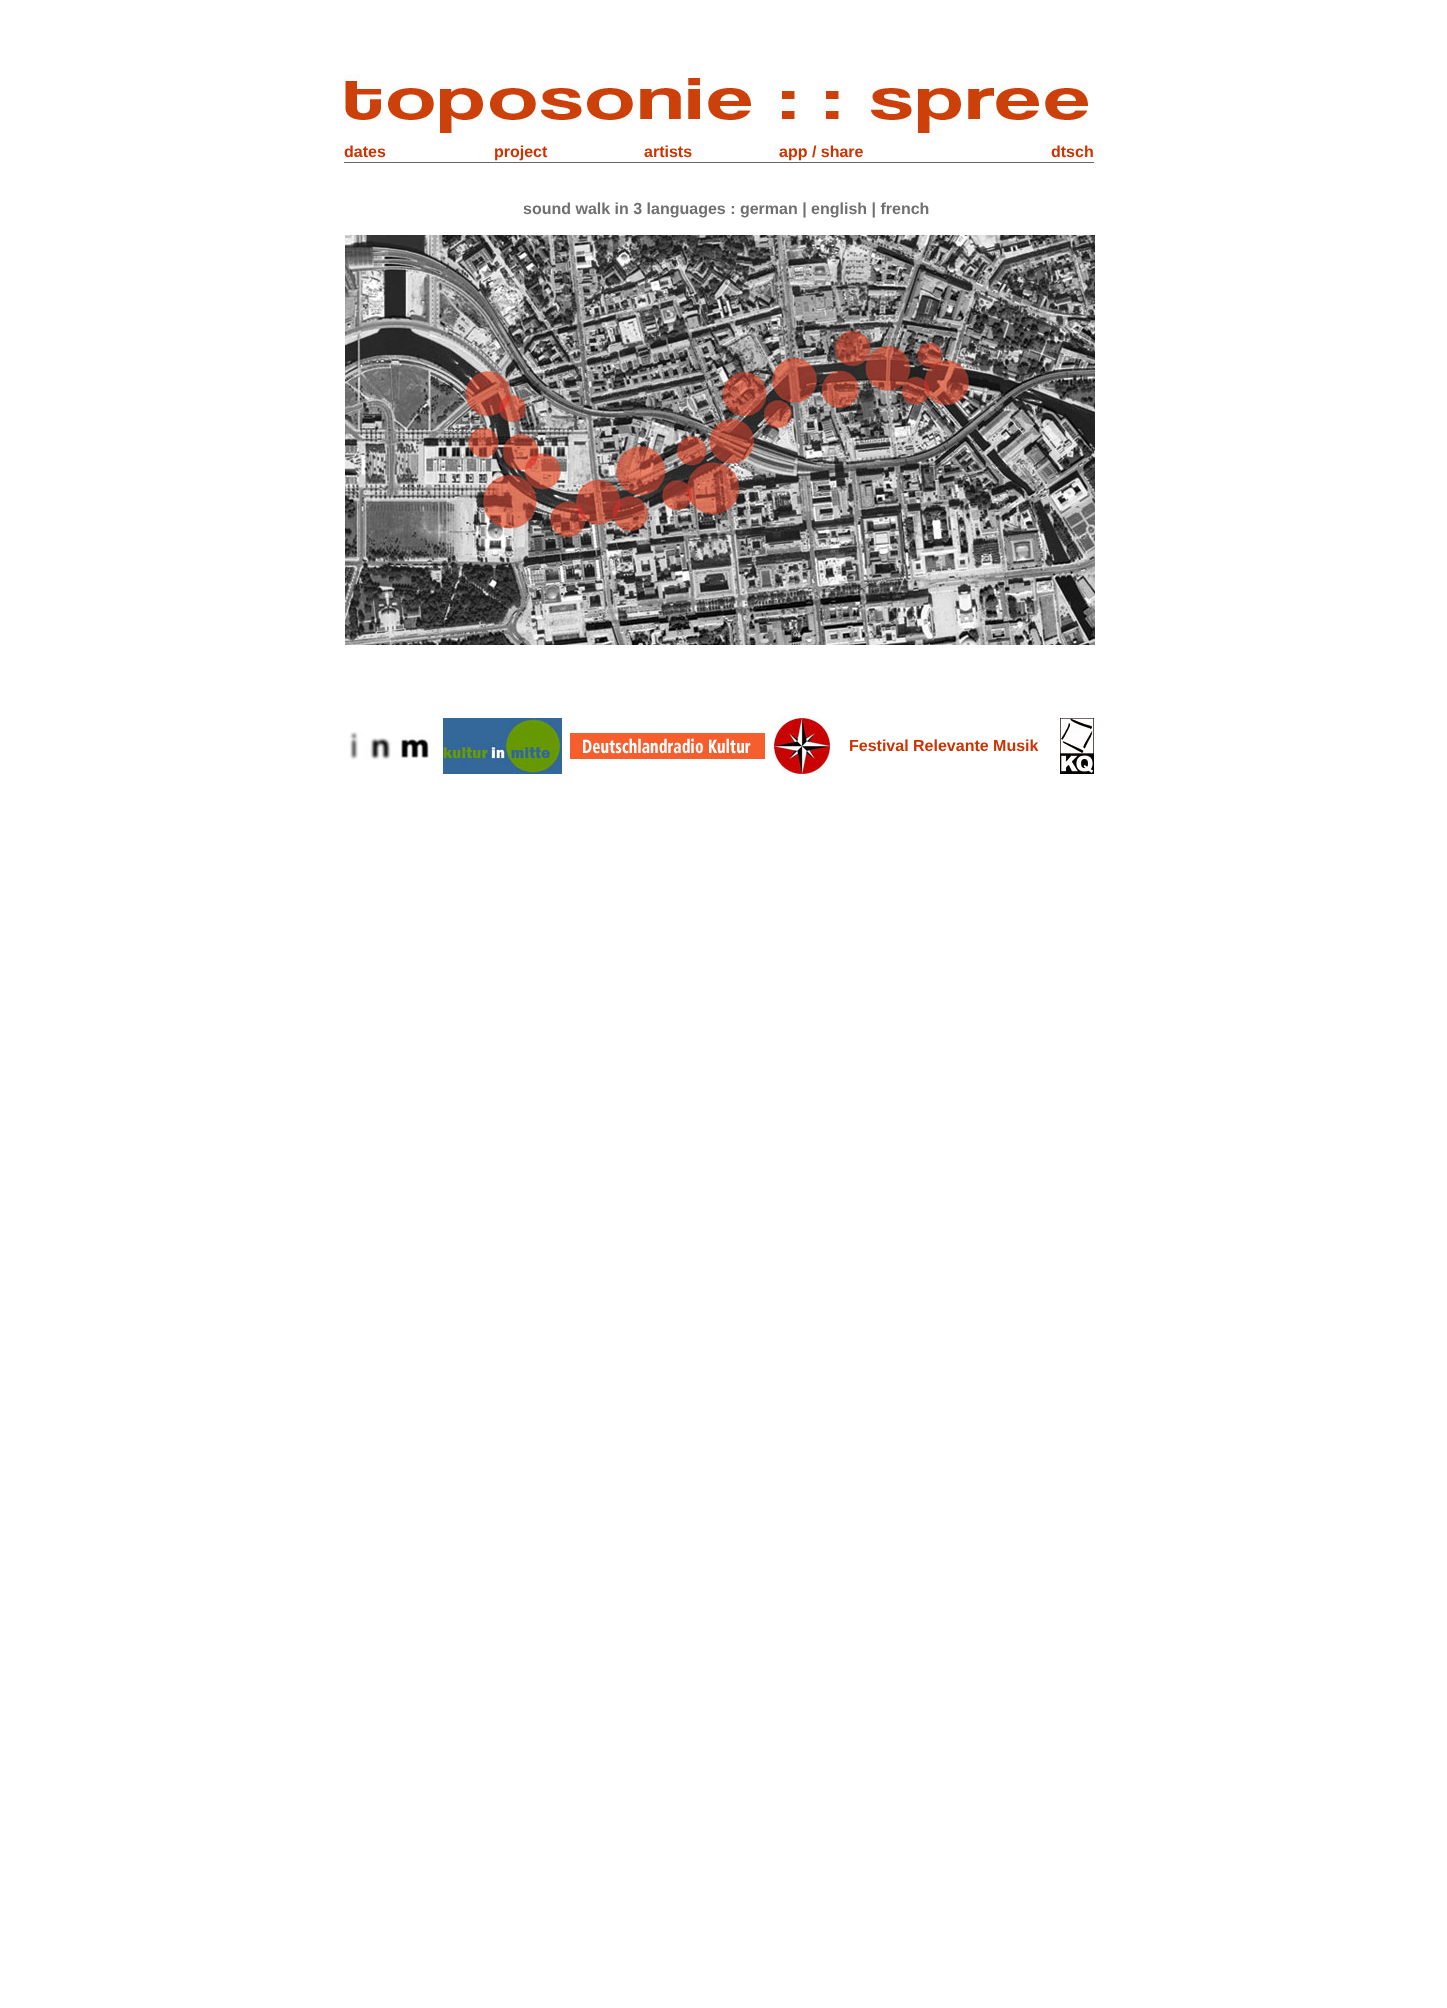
async function draw(canvas) {
  canvas.width = 1447;
  canvas.height = 2008;
  const ctx = canvas.getContext('2d');
  ctx.miterLimit = 4;
  ctx.fontKerning = 'normal';
  function label(s, x, y, font, color) {
    ctx.font = font;
    ctx.fillStyle = color;
    ctx.fillText(s, x, y);
  }
  function rect(x, y, w, h, color) {
    ctx.fillStyle = color;
    ctx.fillRect(x, y, w, h);
  }
  async function image(src, x, y, w, h) {
    const img = new Image();
    img.src = src;
    await img.decode();
    ctx.drawImage(img, x, y, w, h);
  }

  rect(0, 0, 1447, 2008, '#fff');
  await image('assets/img1.png', 344, 74, 744, 64);
  label('dates', 344, 157, 'bold 16px Liberation Sans', '#c30');
  label('project', 494, 157, 'bold 16px Liberation Sans', '#c30');
  label('artists', 644, 157, 'bold 16px Liberation Sans', '#c30');
  label('app / share', 779, 157, 'bold 16px Liberation Sans', '#c30');
  label('dtsch', 1051, 157, 'bold 16px Liberation Sans', '#c30');
  await image('assets/img2.png', 344, 162, 750, 1);
  label('sound walk in 3 languages : german | english | french', 523, 214, 'bold 16px Liberation Sans', '#707070');
  await image('assets/img3.png', 345, 235, 750, 410);
  await image('assets/img4.png', 349, 731, 83, 29);
  await image('assets/img5.png', 443, 718, 119, 56);
  await image('assets/img6.png', 570, 733, 195, 26);
  await image('assets/img7.png', 774, 718, 56, 56);
  label('Festival Relevante Musik', 849, 751, 'bold 16px Liberation Sans', '#c30');
  await image('assets/img8.png', 1060, 718, 34, 56);
}

draw(document.querySelector('canvas'));
